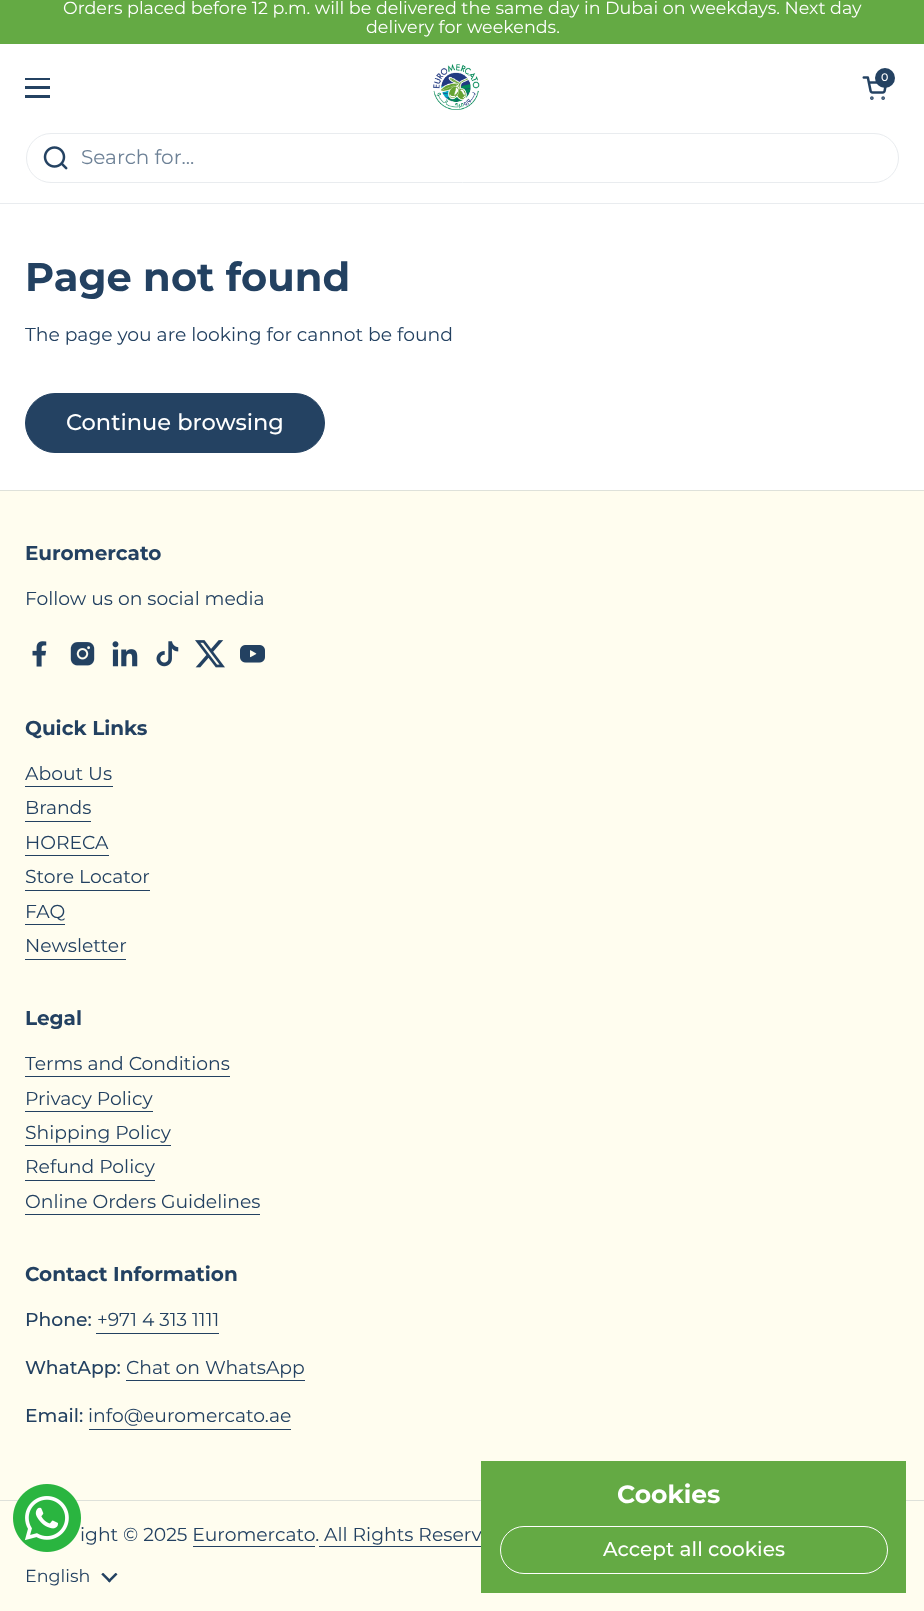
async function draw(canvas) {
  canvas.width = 924;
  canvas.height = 1611;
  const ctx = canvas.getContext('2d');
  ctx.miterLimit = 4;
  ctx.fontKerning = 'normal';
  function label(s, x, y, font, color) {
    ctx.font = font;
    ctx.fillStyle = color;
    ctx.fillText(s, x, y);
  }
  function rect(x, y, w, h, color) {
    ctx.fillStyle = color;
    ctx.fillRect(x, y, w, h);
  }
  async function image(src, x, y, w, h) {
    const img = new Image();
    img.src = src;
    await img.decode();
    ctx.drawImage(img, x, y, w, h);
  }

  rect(0, 0, 924, 1611, '#fff');
  rect(0, 0, 924, 44, '#64aa44');
  label('Orders placed before 12 p.m. will be delivered the same day in Dubai on weekdays. Next day', 63, 14, '17.5px Montserrat', '#fff');
  label('delivery for weekends.', 366, 33, '17.5px Montserrat', '#fff');
  rect(25, 78, 25, 2, '#244262');
  rect(25, 86, 25, 3, '#244262');
  rect(25, 95, 25, 3, '#244262');
  await image('assets/img1.png', 433, 64, 47, 46);
  await image('assets/img2.png', 862, 76, 25, 24);
  ctx.beginPath();
  ctx.arc(885, 78, 10, 0, 2 * Math.PI);
  ctx.fill();
  label('0', 881, 81, '500 11px Montserrat', '#fff');
  rect(0, 203, 924, 1, '#e9ecef');
  ctx.beginPath();
  ctx.roundRect(26.5, 133.5, 872, 49, 24.5);
  ctx.strokeStyle = '#e9ecef';
  ctx.stroke();
  await image('assets/img3.png', 43, 146, 25, 24);
  label('Search for...', 81, 164, '20px Montserrat', '#6e8297');
  label('Page not found', 25, 291, 'bold 40px Montserrat', '#234161');
  label('The page you are looking for cannot be found', 25, 341, '18.75px Montserrat', '#234161');
  ctx.fillStyle = '#244262';
  ctx.beginPath();
  ctx.roundRect(25.5, 393.5, 299, 59, 29.5);
  ctx.fill();
  ctx.strokeStyle = '#244262';
  ctx.stroke();
  label('Continue browsing', 66, 430, '500 22.5px Montserrat', '#fff');
  rect(0, 491, 924, 1120, '#fffdef');
  rect(0, 490, 924, 1, '#dee1da');
  label('Euromercato', 25, 560, 'bold 20px Montserrat', '#234161');
  label('Follow us on social media', 25, 605, '18.75px Montserrat', '#234161');
  await image('assets/img4.png', 32, 641, 15, 26);
  await image('assets/img5.png', 70, 642, 25, 24);
  await image('assets/img6.png', 112, 641, 26, 26);
  await image('assets/img7.png', 156, 641, 23, 26);
  await image('assets/img8.png', 195, 640, 30, 28);
  await image('assets/img9.png', 240, 645, 25, 18);
  label('Quick Links', 25, 735, 'bold 20px Montserrat', '#234161');
  label('About Us', 25, 780, '18.75px Montserrat', '#234161');
  rect(25, 786, 88, 1, '#234161');
  label('Brands', 25, 814, '18.75px Montserrat', '#234161');
  rect(25, 821, 66, 1, '#234161');
  label('HORECA', 25, 849, '18.75px Montserrat', '#234161');
  rect(25, 855, 84, 1, '#234161');
  label('Store Locator', 25, 883, '18.75px Montserrat', '#234161');
  rect(25, 890, 125, 1, '#234161');
  label('FAQ', 25, 918, '18.75px Montserrat', '#234161');
  rect(25, 924, 40, 1, '#234161');
  label('Newsletter', 25, 952, '18.75px Montserrat', '#234161');
  rect(25, 959, 101, 1, '#234161');
  label('Legal', 25, 1025, 'bold 20px Montserrat', '#234161');
  label('Terms and Conditions', 25, 1070, '18.75px Montserrat', '#234161');
  rect(25, 1076, 205, 1, '#234161');
  label('Privacy Policy', 25, 1105, '18.75px Montserrat', '#234161');
  rect(25, 1111, 128, 1, '#234161');
  label('Shipping Policy', 25, 1139, '18.75px Montserrat', '#234161');
  rect(25, 1145, 146, 1, '#234161');
  label('Refund Policy', 25, 1173, '18.75px Montserrat', '#234161');
  rect(25, 1180, 130, 1, '#234161');
  label('Online Orders Guidelines', 25, 1208, '18.75px Montserrat', '#234161');
  rect(25, 1214, 235, 1, '#234161');
  label('Contact Information', 25, 1281, 'bold 20px Montserrat', '#234161');
  label('Phone:', 25, 1326, '500 18.75px Montserrat', '#234161');
  label('+971 4 313 1111', 97, 1326, '18.75px Montserrat', '#234161');
  rect(96, 1333, 123, 1, '#234161');
  label('WhatApp:', 25, 1374, '500 18.75px Montserrat', '#234161');
  label('Chat on WhatsApp', 126, 1374, '18.75px Montserrat', '#234161');
  rect(126, 1380, 179, 1, '#234161');
  label('Email:', 25, 1422, '500 18.75px Montserrat', '#234161');
  label('info@euromercato.ae', 88, 1422, '18.75px Montserrat', '#234161');
  rect(89, 1429, 202, 1, '#234161');
  rect(0, 1500, 924, 1, '#dee1da');
  label('ight © 2025 Euromercato. All Rights Reserv', 80, 1541, '18.75px Montserrat', '#234161');
  rect(193, 1546, 122, 1, '#234161');
  rect(319, 1546, 162, 1, '#234161');
  label('English', 25, 1582, '17.5px Montserrat', '#234161');
  await image('assets/img10.png', 101, 1573, 17, 10);
  rect(481, 1461, 425, 132, '#64aa44');
  label('Cookies', 617, 1503, 'bold 25px Montserrat', '#fff');
  ctx.beginPath();
  ctx.roundRect(500.5, 1526.5, 387, 47, 23.5);
  ctx.strokeStyle = '#fff';
  ctx.stroke();
  label('Accept all cookies', 603, 1556, '500 20px Montserrat', '#fff');
  await image('assets/img11.png', 13, 1484, 68, 68);
}

draw(document.querySelector('canvas'));
